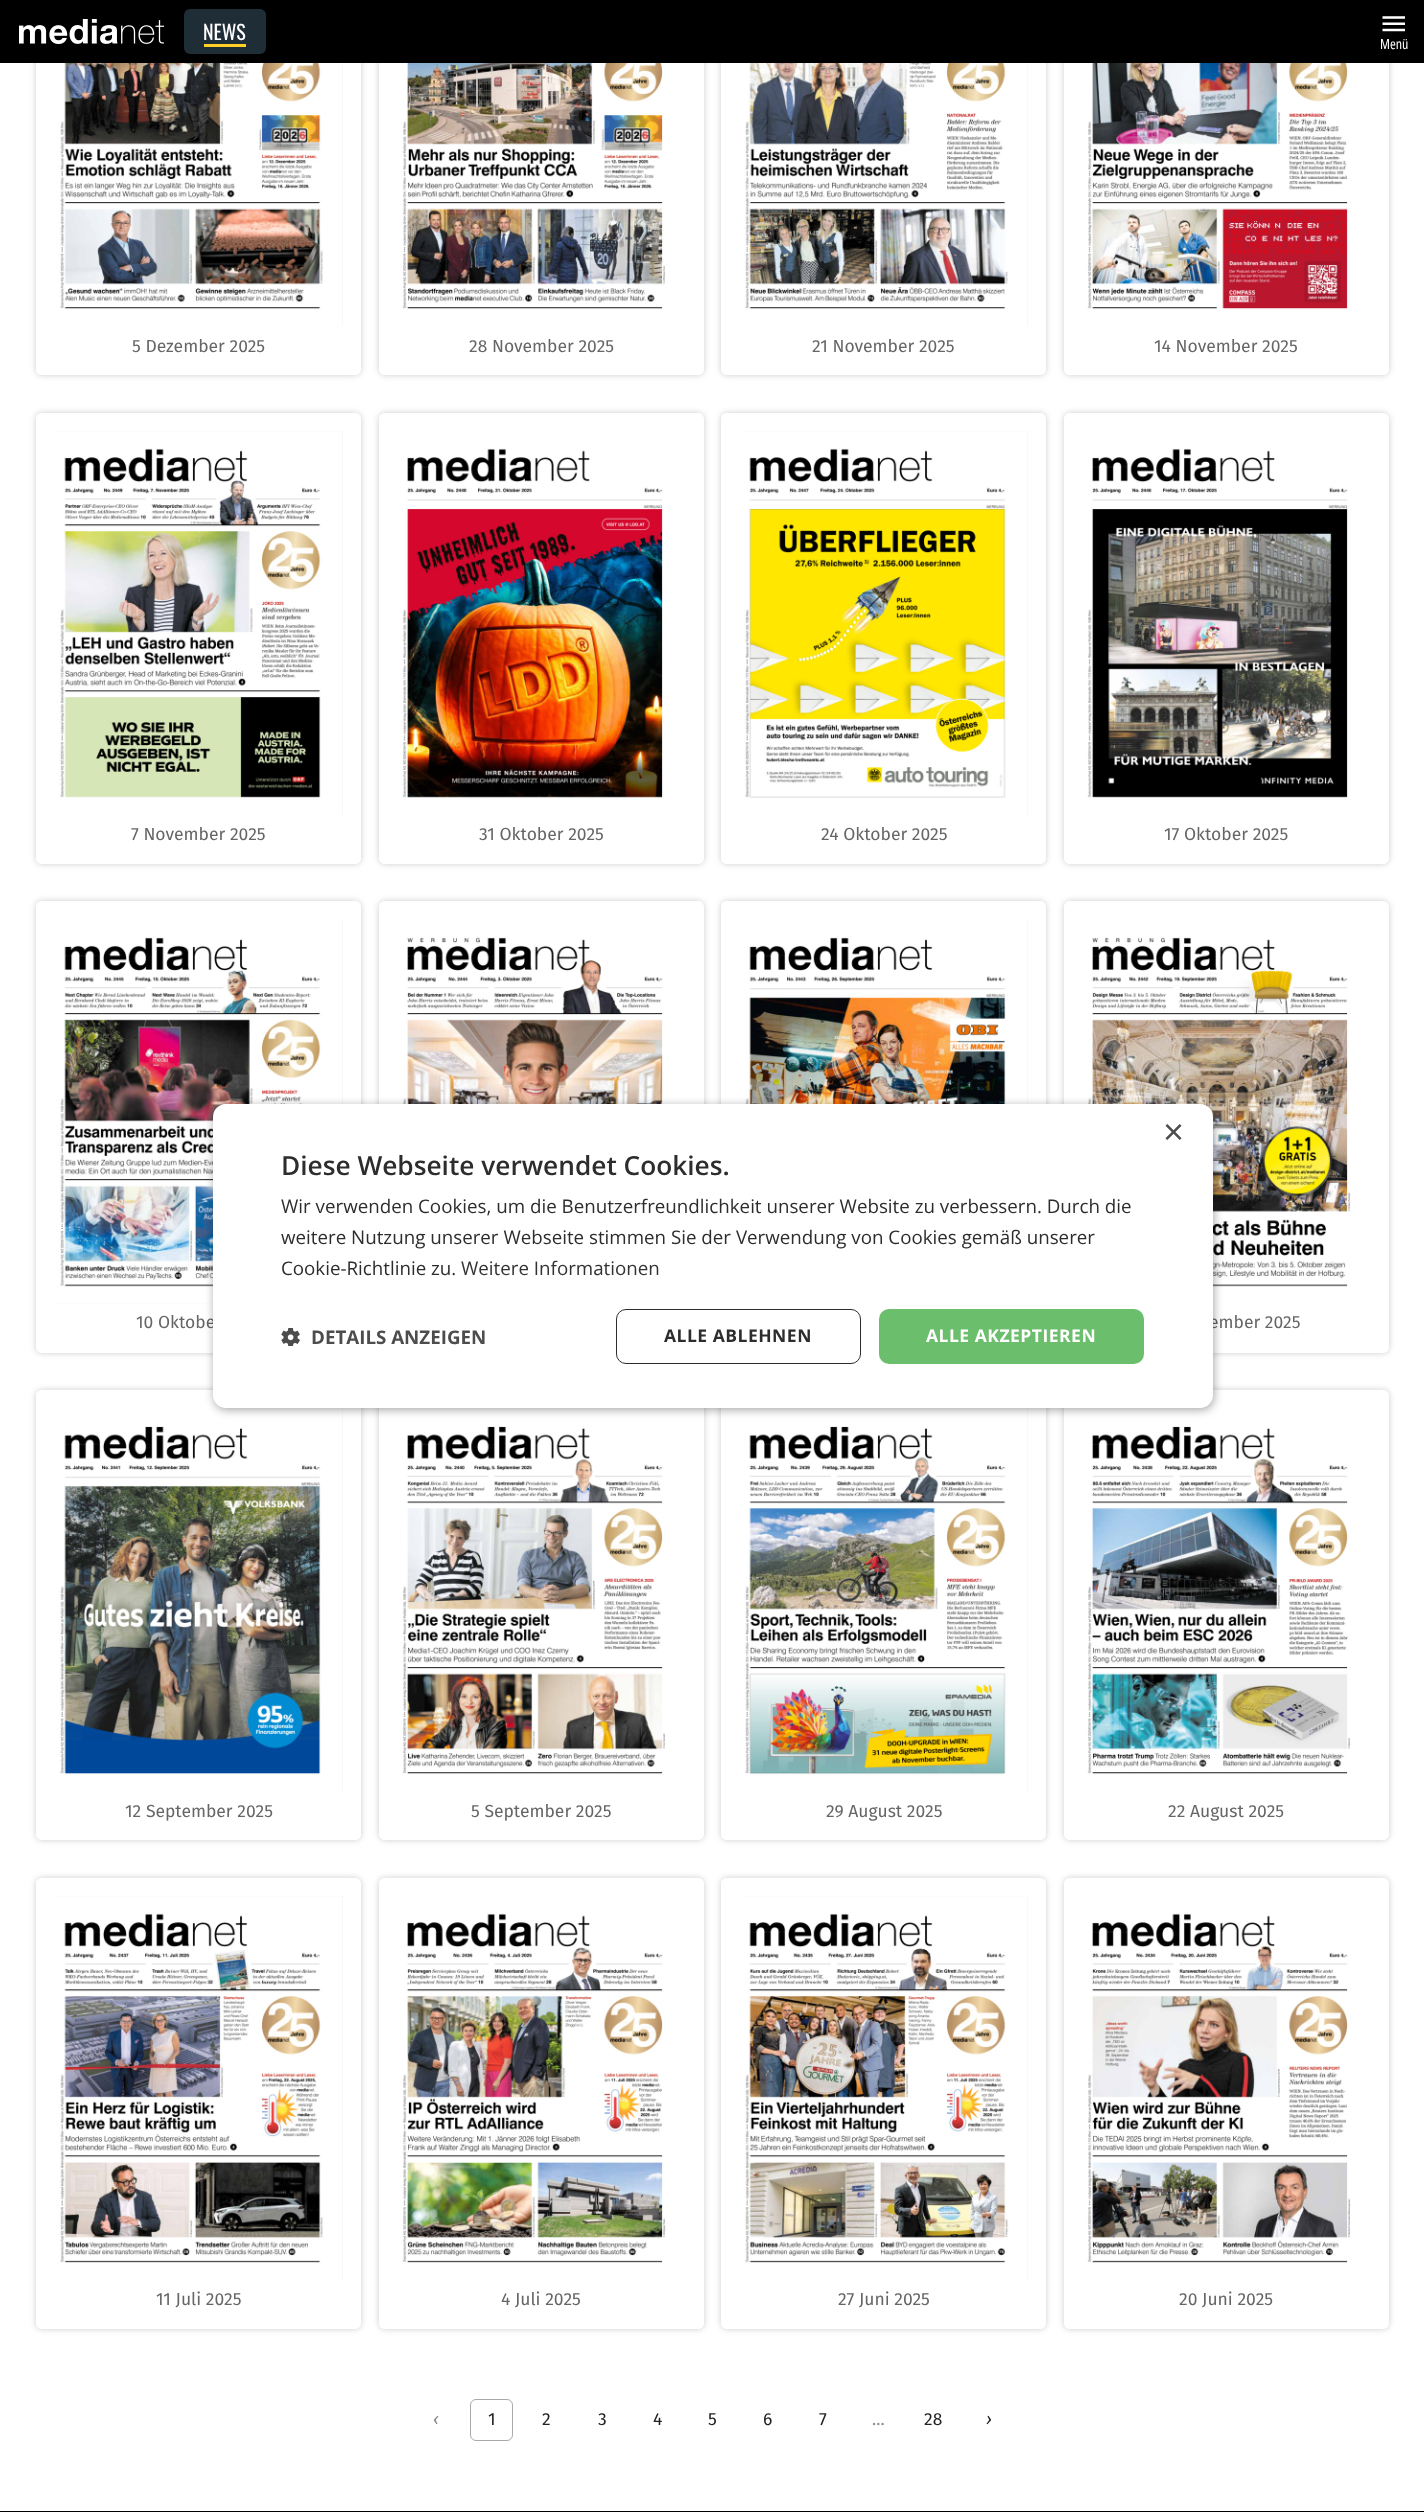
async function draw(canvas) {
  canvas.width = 1424;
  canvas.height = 2512;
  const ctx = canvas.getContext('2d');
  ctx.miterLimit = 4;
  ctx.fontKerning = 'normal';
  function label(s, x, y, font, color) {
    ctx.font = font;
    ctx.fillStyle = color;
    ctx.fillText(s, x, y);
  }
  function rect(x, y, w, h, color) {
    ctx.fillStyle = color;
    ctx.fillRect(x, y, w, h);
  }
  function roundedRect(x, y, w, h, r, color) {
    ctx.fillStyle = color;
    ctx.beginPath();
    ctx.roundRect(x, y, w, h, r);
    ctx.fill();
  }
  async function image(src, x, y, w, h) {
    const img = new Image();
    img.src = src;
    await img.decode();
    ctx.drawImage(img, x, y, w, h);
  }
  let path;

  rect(0, 0, 1424, 2512, '#fff');
  ctx.save();
  path = new Path2D('M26 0H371V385H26ZM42-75H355C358.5-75 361-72.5 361-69V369C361 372.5 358.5 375 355 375H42C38.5 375 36 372.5 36 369V-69C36-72.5 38.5-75 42-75Z');
  ctx.clip(path, 'evenodd');
  ctx.fillStyle = '#00000033';
  ctx.filter = 'blur(3px)';
  ctx.beginPath();
  ctx.roundRect(36, -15, 325, 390, 6);
  ctx.fill();
  ctx.filter = 'none';
  ctx.restore();
  ctx.save();
  path = new Path2D('M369 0H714V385H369ZM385-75H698C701.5-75 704-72.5 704-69V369C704 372.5 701.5 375 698 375H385C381.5 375 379 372.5 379 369V-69C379-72.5 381.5-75 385-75Z');
  ctx.clip(path, 'evenodd');
  ctx.fillStyle = '#00000033';
  ctx.filter = 'blur(3px)';
  ctx.beginPath();
  ctx.roundRect(379, -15, 325, 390, 6);
  ctx.fill();
  ctx.filter = 'none';
  ctx.restore();
  ctx.save();
  path = new Path2D('M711 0H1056V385H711ZM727-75H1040C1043.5-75 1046-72.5 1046-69V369C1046 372.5 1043.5 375 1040 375H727C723.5 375 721 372.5 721 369V-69C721-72.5 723.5-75 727-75Z');
  ctx.clip(path, 'evenodd');
  ctx.fillStyle = '#00000033';
  ctx.filter = 'blur(3px)';
  ctx.beginPath();
  ctx.roundRect(721, -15, 325, 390, 6);
  ctx.fill();
  ctx.filter = 'none';
  ctx.restore();
  ctx.save();
  path = new Path2D('M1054 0H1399V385H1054ZM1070-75H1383C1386.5-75 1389-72.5 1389-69V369C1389 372.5 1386.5 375 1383 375H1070C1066.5 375 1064 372.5 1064 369V-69C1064-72.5 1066.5-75 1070-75Z');
  ctx.clip(path, 'evenodd');
  ctx.fillStyle = '#00000033';
  ctx.filter = 'blur(3px)';
  ctx.beginPath();
  ctx.roundRect(1064, -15, 325, 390, 6);
  ctx.fill();
  ctx.filter = 'none';
  ctx.restore();
  rect(0, 0, 1424, 63, '#000');
  await image('assets/img1.png', 19, 19, 146, 25);
  roundedRect(184, 9, 82, 45, 6, '#1f2d37');
  label('NEWS', 203, 40, '20px Oswald', '#fff');
  rect(204, 44, 42, 3, '#ffd125');
  await image('assets/img2.png', 1382, 16, 23, 16);
  label('Menü', 1380, 49, '14px Open Sans', '#fff');
  rect(342, 63, 1, 263, '#f0f0f0');
  await image('assets/img3.png', 55, 63, 288, 263);
  label('5 Dezember 2025', 132, 352, '17.5px Fira Sans', '#666');
  await image('assets/img4.png', 398, 63, 287, 263);
  label('28 November 2025', 469, 352, '17.5px Fira Sans', '#666');
  rect(1027, 63, 1, 263, '#f0f0f0');
  await image('assets/img5.png', 740, 63, 288, 263);
  label('21 November 2025', 812, 352, '17.5px Fira Sans', '#666');
  await image('assets/img6.png', 1083, 63, 287, 263);
  label('14 November 2025', 1154, 352, '17.5px Fira Sans', '#666');
  ctx.save();
  path = new Path2D('M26 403H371V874H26ZM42 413H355C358.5 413 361 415.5 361 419V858C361 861.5 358.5 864 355 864H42C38.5 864 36 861.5 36 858V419C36 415.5 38.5 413 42 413Z');
  ctx.clip(path, 'evenodd');
  ctx.fillStyle = '#00000033';
  ctx.filter = 'blur(3px)';
  ctx.beginPath();
  ctx.roundRect(36, 413, 325, 451, 6);
  ctx.fill();
  ctx.filter = 'none';
  ctx.restore();
  rect(55, 431, 288, 384, '#f0f0f0');
  await image('assets/img7.png', 55, 431, 288, 384);
  label('7 November 2025', 131, 840, '17.5px Fira Sans', '#666');
  ctx.save();
  path = new Path2D('M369 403H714V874H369ZM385 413H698C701.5 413 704 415.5 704 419V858C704 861.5 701.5 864 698 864H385C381.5 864 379 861.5 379 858V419C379 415.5 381.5 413 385 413Z');
  ctx.clip(path, 'evenodd');
  ctx.fillStyle = '#00000033';
  ctx.filter = 'blur(3px)';
  ctx.beginPath();
  ctx.roundRect(379, 413, 325, 451, 6);
  ctx.fill();
  ctx.filter = 'none';
  ctx.restore();
  await image('assets/img8.png', 398, 431, 287, 384);
  label('31 Oktober 2025', 479, 840, '17.5px Fira Sans', '#666');
  ctx.save();
  path = new Path2D('M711 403H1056V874H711ZM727 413H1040C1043.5 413 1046 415.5 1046 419V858C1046 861.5 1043.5 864 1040 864H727C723.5 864 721 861.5 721 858V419C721 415.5 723.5 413 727 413Z');
  ctx.clip(path, 'evenodd');
  ctx.fillStyle = '#00000033';
  ctx.filter = 'blur(3px)';
  ctx.beginPath();
  ctx.roundRect(721, 413, 325, 451, 6);
  ctx.fill();
  ctx.filter = 'none';
  ctx.restore();
  rect(740, 431, 288, 384, '#f0f0f0');
  await image('assets/img9.png', 740, 431, 288, 384);
  label('24 Oktober 2025', 821, 840, '17.5px Fira Sans', '#666');
  ctx.save();
  path = new Path2D('M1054 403H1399V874H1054ZM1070 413H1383C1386.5 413 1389 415.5 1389 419V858C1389 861.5 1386.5 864 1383 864H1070C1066.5 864 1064 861.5 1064 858V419C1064 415.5 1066.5 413 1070 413Z');
  ctx.clip(path, 'evenodd');
  ctx.fillStyle = '#00000033';
  ctx.filter = 'blur(3px)';
  ctx.beginPath();
  ctx.roundRect(1064, 413, 325, 451, 6);
  ctx.fill();
  ctx.filter = 'none';
  ctx.restore();
  await image('assets/img10.png', 1083, 431, 287, 384);
  label('17 Oktober 2025', 1164, 840, '17.5px Fira Sans', '#666');
  ctx.save();
  path = new Path2D('M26 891H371V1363H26ZM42 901H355C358.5 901 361 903.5 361 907V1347C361 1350.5 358.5 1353 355 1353H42C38.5 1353 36 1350.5 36 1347V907C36 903.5 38.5 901 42 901Z');
  ctx.clip(path, 'evenodd');
  ctx.fillStyle = '#00000033';
  ctx.filter = 'blur(3px)';
  ctx.beginPath();
  ctx.roundRect(36, 901, 325, 452, 6);
  ctx.fill();
  ctx.filter = 'none';
  ctx.restore();
  rect(55, 920, 288, 384, '#f0f0f0');
  await image('assets/img11.png', 55, 920, 288, 384);
  label('10 Oktobe', 136, 1328, '17.5px Fira Sans', '#666');
  ctx.save();
  path = new Path2D('M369 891H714V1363H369ZM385 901H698C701.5 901 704 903.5 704 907V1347C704 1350.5 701.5 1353 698 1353H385C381.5 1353 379 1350.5 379 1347V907C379 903.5 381.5 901 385 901Z');
  ctx.clip(path, 'evenodd');
  ctx.fillStyle = '#00000033';
  ctx.filter = 'blur(3px)';
  ctx.beginPath();
  ctx.roundRect(379, 901, 325, 452, 6);
  ctx.fill();
  ctx.filter = 'none';
  ctx.restore();
  await image('assets/img12.png', 398, 920, 287, 184);
  ctx.save();
  path = new Path2D('M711 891H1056V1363H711ZM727 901H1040C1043.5 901 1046 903.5 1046 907V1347C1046 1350.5 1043.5 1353 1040 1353H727C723.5 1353 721 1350.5 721 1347V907C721 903.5 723.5 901 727 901Z');
  ctx.clip(path, 'evenodd');
  ctx.fillStyle = '#00000033';
  ctx.filter = 'blur(3px)';
  ctx.beginPath();
  ctx.roundRect(721, 901, 325, 452, 6);
  ctx.fill();
  ctx.filter = 'none';
  ctx.restore();
  rect(1027, 920, 1, 184, '#f0f0f0');
  await image('assets/img13.png', 740, 920, 288, 184);
  ctx.save();
  path = new Path2D('M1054 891H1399V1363H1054ZM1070 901H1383C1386.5 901 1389 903.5 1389 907V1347C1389 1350.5 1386.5 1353 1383 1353H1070C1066.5 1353 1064 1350.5 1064 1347V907C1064 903.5 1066.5 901 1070 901Z');
  ctx.clip(path, 'evenodd');
  ctx.fillStyle = '#00000033';
  ctx.filter = 'blur(3px)';
  ctx.beginPath();
  ctx.roundRect(1064, 901, 325, 452, 6);
  ctx.fill();
  ctx.filter = 'none';
  ctx.restore();
  await image('assets/img14.png', 1083, 920, 287, 384);
  label('ember 2025', 1209, 1328, '17.5px Fira Sans', '#666');
  ctx.save();
  path = new Path2D('M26 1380H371V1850H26ZM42 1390H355C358.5 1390 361 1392.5 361 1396V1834C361 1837.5 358.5 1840 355 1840H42C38.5 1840 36 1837.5 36 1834V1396C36 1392.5 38.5 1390 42 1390Z');
  ctx.clip(path, 'evenodd');
  ctx.fillStyle = '#00000033';
  ctx.filter = 'blur(3px)';
  ctx.beginPath();
  ctx.roundRect(36, 1390, 325, 450, 6);
  ctx.fill();
  ctx.filter = 'none';
  ctx.restore();
  rect(342, 1409, 1, 382, '#f0f0f0');
  await image('assets/img15.png', 55, 1409, 288, 382);
  label('12 September 2025', 125, 1817, '17.5px Fira Sans', '#666');
  ctx.save();
  path = new Path2D('M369 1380H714V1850H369ZM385 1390H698C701.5 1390 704 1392.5 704 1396V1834C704 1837.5 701.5 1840 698 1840H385C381.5 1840 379 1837.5 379 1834V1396C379 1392.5 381.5 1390 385 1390Z');
  ctx.clip(path, 'evenodd');
  ctx.fillStyle = '#00000033';
  ctx.filter = 'blur(3px)';
  ctx.beginPath();
  ctx.roundRect(379, 1390, 325, 450, 6);
  ctx.fill();
  ctx.filter = 'none';
  ctx.restore();
  await image('assets/img16.png', 398, 1409, 287, 382);
  label('5 September 2025', 471, 1817, '17.5px Fira Sans', '#666');
  ctx.save();
  path = new Path2D('M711 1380H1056V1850H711ZM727 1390H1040C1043.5 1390 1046 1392.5 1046 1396V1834C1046 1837.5 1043.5 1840 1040 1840H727C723.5 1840 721 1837.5 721 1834V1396C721 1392.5 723.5 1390 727 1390Z');
  ctx.clip(path, 'evenodd');
  ctx.fillStyle = '#00000033';
  ctx.filter = 'blur(3px)';
  ctx.beginPath();
  ctx.roundRect(721, 1390, 325, 450, 6);
  ctx.fill();
  ctx.filter = 'none';
  ctx.restore();
  rect(1027, 1409, 1, 382, '#f0f0f0');
  await image('assets/img17.png', 740, 1409, 288, 382);
  label('29 August 2025', 826, 1817, '17.5px Fira Sans', '#666');
  ctx.save();
  path = new Path2D('M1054 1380H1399V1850H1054ZM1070 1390H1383C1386.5 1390 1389 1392.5 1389 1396V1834C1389 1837.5 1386.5 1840 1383 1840H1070C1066.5 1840 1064 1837.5 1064 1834V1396C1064 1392.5 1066.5 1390 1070 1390Z');
  ctx.clip(path, 'evenodd');
  ctx.fillStyle = '#00000033';
  ctx.filter = 'blur(3px)';
  ctx.beginPath();
  ctx.roundRect(1064, 1390, 325, 450, 6);
  ctx.fill();
  ctx.filter = 'none';
  ctx.restore();
  await image('assets/img18.png', 1083, 1409, 287, 382);
  label('22 August 2025', 1168, 1817, '17.5px Fira Sans', '#666');
  ctx.save();
  path = new Path2D('M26 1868H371V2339H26ZM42 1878H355C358.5 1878 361 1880.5 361 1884V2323C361 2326.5 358.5 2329 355 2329H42C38.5 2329 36 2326.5 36 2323V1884C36 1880.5 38.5 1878 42 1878Z');
  ctx.clip(path, 'evenodd');
  ctx.fillStyle = '#00000033';
  ctx.filter = 'blur(3px)';
  ctx.beginPath();
  ctx.roundRect(36, 1878, 325, 451, 6);
  ctx.fill();
  ctx.filter = 'none';
  ctx.restore();
  rect(55, 1896, 288, 384, '#f0f0f0');
  await image('assets/img19.png', 55, 1896, 288, 384);
  label('11 Juli 2025', 156, 2305, '17.5px Fira Sans', '#666');
  ctx.save();
  path = new Path2D('M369 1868H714V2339H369ZM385 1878H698C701.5 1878 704 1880.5 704 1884V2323C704 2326.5 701.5 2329 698 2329H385C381.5 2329 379 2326.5 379 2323V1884C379 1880.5 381.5 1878 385 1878Z');
  ctx.clip(path, 'evenodd');
  ctx.fillStyle = '#00000033';
  ctx.filter = 'blur(3px)';
  ctx.beginPath();
  ctx.roundRect(379, 1878, 325, 451, 6);
  ctx.fill();
  ctx.filter = 'none';
  ctx.restore();
  await image('assets/img20.png', 398, 1896, 287, 384);
  label('4 Juli 2025', 501, 2305, '17.5px Fira Sans', '#666');
  ctx.save();
  path = new Path2D('M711 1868H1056V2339H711ZM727 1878H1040C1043.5 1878 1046 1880.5 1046 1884V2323C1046 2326.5 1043.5 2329 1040 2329H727C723.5 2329 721 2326.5 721 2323V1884C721 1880.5 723.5 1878 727 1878Z');
  ctx.clip(path, 'evenodd');
  ctx.fillStyle = '#00000033';
  ctx.filter = 'blur(3px)';
  ctx.beginPath();
  ctx.roundRect(721, 1878, 325, 451, 6);
  ctx.fill();
  ctx.filter = 'none';
  ctx.restore();
  rect(740, 1896, 288, 384, '#f0f0f0');
  await image('assets/img21.png', 740, 1896, 288, 384);
  label('27 Juni 2025', 838, 2305, '17.5px Fira Sans', '#666');
  ctx.save();
  path = new Path2D('M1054 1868H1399V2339H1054ZM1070 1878H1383C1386.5 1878 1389 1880.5 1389 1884V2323C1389 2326.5 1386.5 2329 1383 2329H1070C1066.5 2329 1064 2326.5 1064 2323V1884C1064 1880.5 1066.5 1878 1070 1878Z');
  ctx.clip(path, 'evenodd');
  ctx.fillStyle = '#00000033';
  ctx.filter = 'blur(3px)';
  ctx.beginPath();
  ctx.roundRect(1064, 1878, 325, 451, 6);
  ctx.fill();
  ctx.filter = 'none';
  ctx.restore();
  await image('assets/img22.png', 1083, 1896, 287, 384);
  label('20 Juni 2025', 1179, 2305, '17.5px Fira Sans', '#666');
  label('‹', 433, 2425, 'italic 17.5px Fira Sans', '#888');
  ctx.beginPath();
  ctx.roundRect(470.5, 2399.5, 42, 41, 5.5);
  ctx.strokeStyle = '#aaa';
  ctx.stroke();
  label('1', 488, 2425, '17.5px Fira Sans', '#222');
  label('2', 542, 2425, '17.5px Fira Sans', '#222');
  label('3', 598, 2425, '17.5px Fira Sans', '#222');
  label('4', 653, 2425, '17.5px Fira Sans', '#222');
  label('5', 708, 2425, '17.5px Fira Sans', '#222');
  label('6', 763, 2425, '17.5px Fira Sans', '#222');
  label('7', 819, 2425, '17.5px Fira Sans', '#222');
  label('...', 872, 2425, '17.5px Fira Sans', '#888');
  label('28', 924, 2425, '17.5px Fira Sans', '#222');
  label('›', 986, 2425, 'italic 17.5px Fira Sans', '#222');
  rect(0, 2511, 1424, 1, '#000');
  ctx.fillStyle = '#00000059';
  ctx.filter = 'blur(5px)';
  ctx.beginPath();
  ctx.roundRect(214, 1106, 1000, 304, 13);
  ctx.fill();
  ctx.filter = 'none';
  roundedRect(213, 1104, 1000, 304, 13, '#fff');
  label('×', 1163, 1144, '36px Liberation Sans', '#4d4d4d');
  label('Diese Webseite verwendet Cookies.', 281, 1175, '600 26.25px Open Sans', '#2d2d2d');
  label('Wir verwenden Cookies, um die Benutzerfreundlichkeit unserer Website zu verbessern. Durch die', 281, 1213, '18.75px "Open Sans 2"', '#2d2d2d');
  label('weitere Nutzung unserer Webseite stimmen Sie der Verwendung von Cookies gemäß unserer', 281, 1244, '18.75px "Open Sans 2"', '#2d2d2d');
  label('Cookie-Richtlinie zu.', 281, 1275, '18.75px "Open Sans 2"', '#2d2d2d');
  label('Weitere Informationen', 461, 1275, '18.75px "Open Sans 2"', '#333');
  await image('assets/img23.png', 281, 1328, 19, 18);
  label('DETAILS ANZEIGEN', 311, 1344, 'bold 18.75px Open Sans', '#4d4d4d');
  ctx.beginPath();
  ctx.roundRect(616.5, 1309.5, 244, 54, 9.5);
  ctx.strokeStyle = '#2d2d2d';
  ctx.stroke();
  ctx.letterSpacing = '0.5px';
  label('ALLE ABLEHNEN', 664, 1342, 'bold 17.5px Open Sans', '#2d2d2d');
  roundedRect(879, 1309, 265, 55, 10, '#6bbe6b');
  label('ALLE AKZEPTIEREN', 926, 1342, 'bold 17.5px Open Sans', '#fff');
}

draw(document.querySelector('canvas'));
